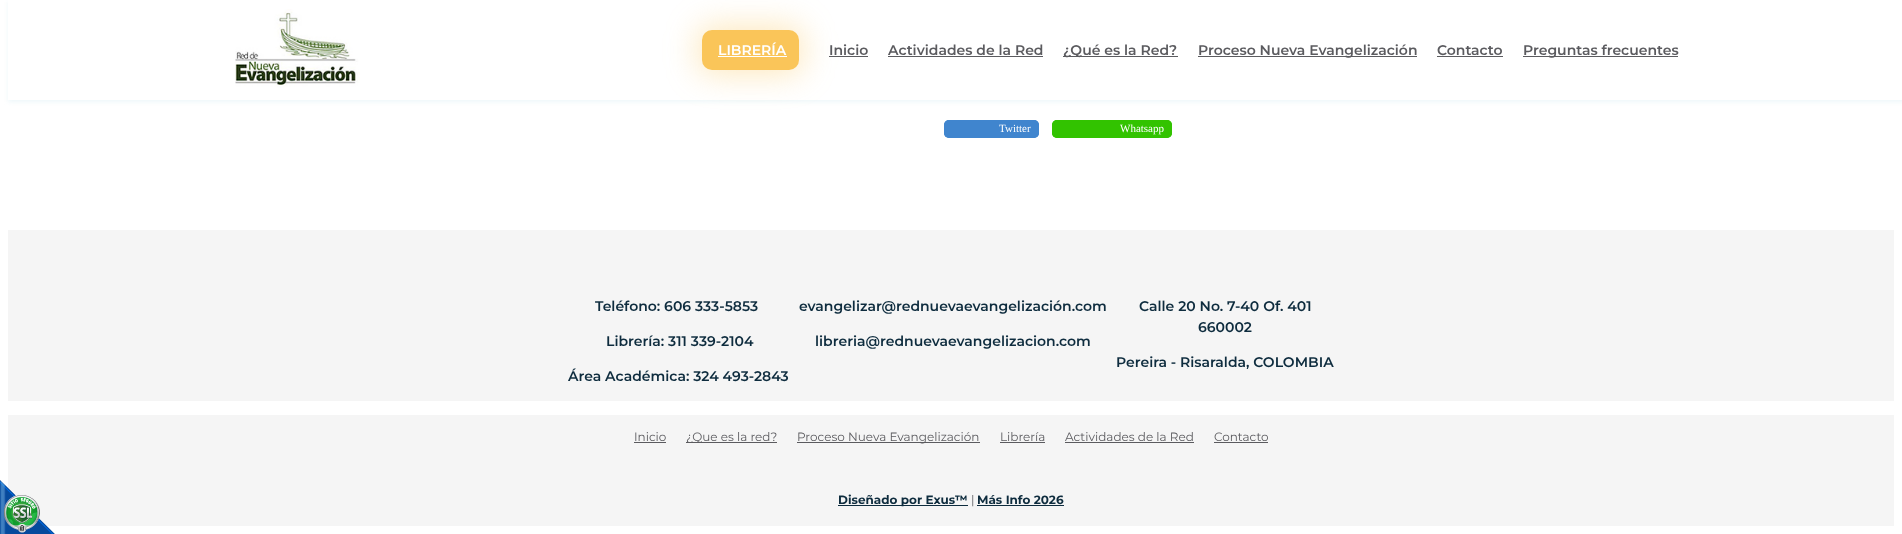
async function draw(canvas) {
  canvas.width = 1902;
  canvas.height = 534;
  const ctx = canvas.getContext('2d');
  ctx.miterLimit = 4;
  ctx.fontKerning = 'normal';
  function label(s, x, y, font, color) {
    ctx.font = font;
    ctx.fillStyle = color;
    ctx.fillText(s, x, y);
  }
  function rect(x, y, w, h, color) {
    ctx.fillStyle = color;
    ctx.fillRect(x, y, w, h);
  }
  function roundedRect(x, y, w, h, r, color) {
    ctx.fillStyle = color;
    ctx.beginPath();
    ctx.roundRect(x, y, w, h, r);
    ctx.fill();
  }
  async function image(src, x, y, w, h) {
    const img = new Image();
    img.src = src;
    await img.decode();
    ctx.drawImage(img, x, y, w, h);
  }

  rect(0, 0, 1902, 534, '#fff');
  ctx.fillStyle = '#eef7fa';
  ctx.filter = 'blur(2px)';
  ctx.beginPath();
  ctx.rect(8, 2, 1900, 100);
  ctx.fill();
  ctx.filter = 'none';
  rect(8, 0, 1894, 100, '#fff');
  await image('assets/img1.png', 235, 9, 125, 79);
  ctx.fillStyle = '#fac55966';
  ctx.filter = 'blur(16px)';
  ctx.beginPath();
  ctx.roundRect(698, 26, 105, 48, 14);
  ctx.fill();
  ctx.filter = 'none';
  roundedRect(702, 30, 97, 40, 10, '#fac559');
  label('LIBRERÍA', 718, 55, '600 14px Montserrat', '#fff');
  rect(718, 56, 69, 1, '#fff');
  label('Inicio', 829, 55, '600 14px Montserrat', '#5b5b5f');
  rect(829, 56, 39, 1, '#5b5b5f');
  label('Actividades de la Red', 888, 55, '600 14px Montserrat', '#5b5b5f');
  rect(888, 56, 155, 1, '#5b5b5f');
  rect(1063, 56, 115, 1, '#5b5b5f');
  label('¿Qué es la Red?', 1063, 55, '600 14px Montserrat', '#5b5b5f');
  rect(1198, 56, 219, 1, '#5b5b5f');
  label('Proceso Nueva Evangelización', 1198, 55, '600 14px Montserrat', '#5b5b5f');
  label('Contacto', 1437, 55, '600 14px Montserrat', '#5b5b5f');
  rect(1437, 56, 66, 1, '#5b5b5f');
  rect(1523, 56, 155, 1, '#5b5b5f');
  label('Preguntas frecuentes', 1523, 55, '600 14px Montserrat', '#5b5b5f');
  ctx.fillStyle = '#4085ce';
  ctx.filter = 'blur(0.5px)';
  ctx.beginPath();
  ctx.roundRect(944, 120, 95, 18, 5);
  ctx.fill();
  ctx.filter = 'none';
  roundedRect(944, 120, 95, 18, 5, '#4085ce');
  label('Twitter', 999, 132, '11px Liberation Serif', '#fff');
  ctx.fillStyle = '#32c300';
  ctx.filter = 'blur(0.5px)';
  ctx.beginPath();
  ctx.roundRect(1052, 120, 120, 18, 5);
  ctx.fill();
  ctx.filter = 'none';
  roundedRect(1052, 120, 120, 18, 5, '#32c300');
  label('Whatsapp', 1120, 132, '11px Liberation Serif', '#fff');
  rect(8, 230, 1886, 171, '#f5f5f5');
  label('Teléfono: 606 333-5853', 595, 311, '600 14px Montserrat', '#0e2c3e');
  label('Librería: 311 339-2104', 606, 346, '600 14px Montserrat', '#0e2c3e');
  label('Área Académica: 324 493-2843', 568, 381, '600 14px Montserrat', '#0e2c3e');
  label('evangelizar@rednuevaevangelización.com', 799, 311, '600 14px Montserrat', '#0e2c3e');
  label('libreria@rednuevaevangelizacion.com', 815, 346, '600 14px Montserrat', '#0e2c3e');
  label('Calle 20 No. 7-40 Of. 401', 1139, 311, '600 14px Montserrat', '#0e2c3e');
  label('660002', 1198, 332, '600 14px Montserrat', '#0e2c3e');
  label('Pereira - Risaralda, COLOMBIA', 1116, 367, '600 14px Montserrat', '#0e2c3e');
  rect(8, 415, 1886, 111, '#f5f5f5');
  await image('assets/img2.png', 0, 480, 55, 54);
  label('Inicio', 634, 441, '12px Montserrat', '#5b5b5f');
  rect(634, 442, 32, 1, '#5b5b5f');
  rect(686, 442, 91, 1, '#5b5b5f');
  label('¿Que es la red?', 686, 441, '12px Montserrat', '#5b5b5f');
  rect(797, 442, 183, 1, '#5b5b5f');
  label('Proceso Nueva Evangelización', 797, 441, '12px Montserrat', '#5b5b5f');
  label('Librería', 1000, 441, '12px Montserrat', '#5b5b5f');
  rect(1000, 442, 45, 1, '#5b5b5f');
  label('Actividades de la Red', 1065, 441, '12px Montserrat', '#5b5b5f');
  rect(1065, 442, 129, 1, '#5b5b5f');
  label('Contacto', 1214, 441, '12px Montserrat', '#5b5b5f');
  rect(1214, 442, 54, 1, '#5b5b5f');
  rect(838, 505, 130, 1, '#0e2c3e');
  label('Diseñado por Exus™', 838, 504, 'bold 12px Montserrat', '#0e2c3e');
  label('|', 971, 504, '12px Montserrat', '#5b5b5f');
  label('Más Info 2026', 977, 504, 'bold 12px Montserrat', '#0e2c3e');
  rect(977, 505, 87, 1, '#0e2c3e');
}

draw(document.querySelector('canvas'));
